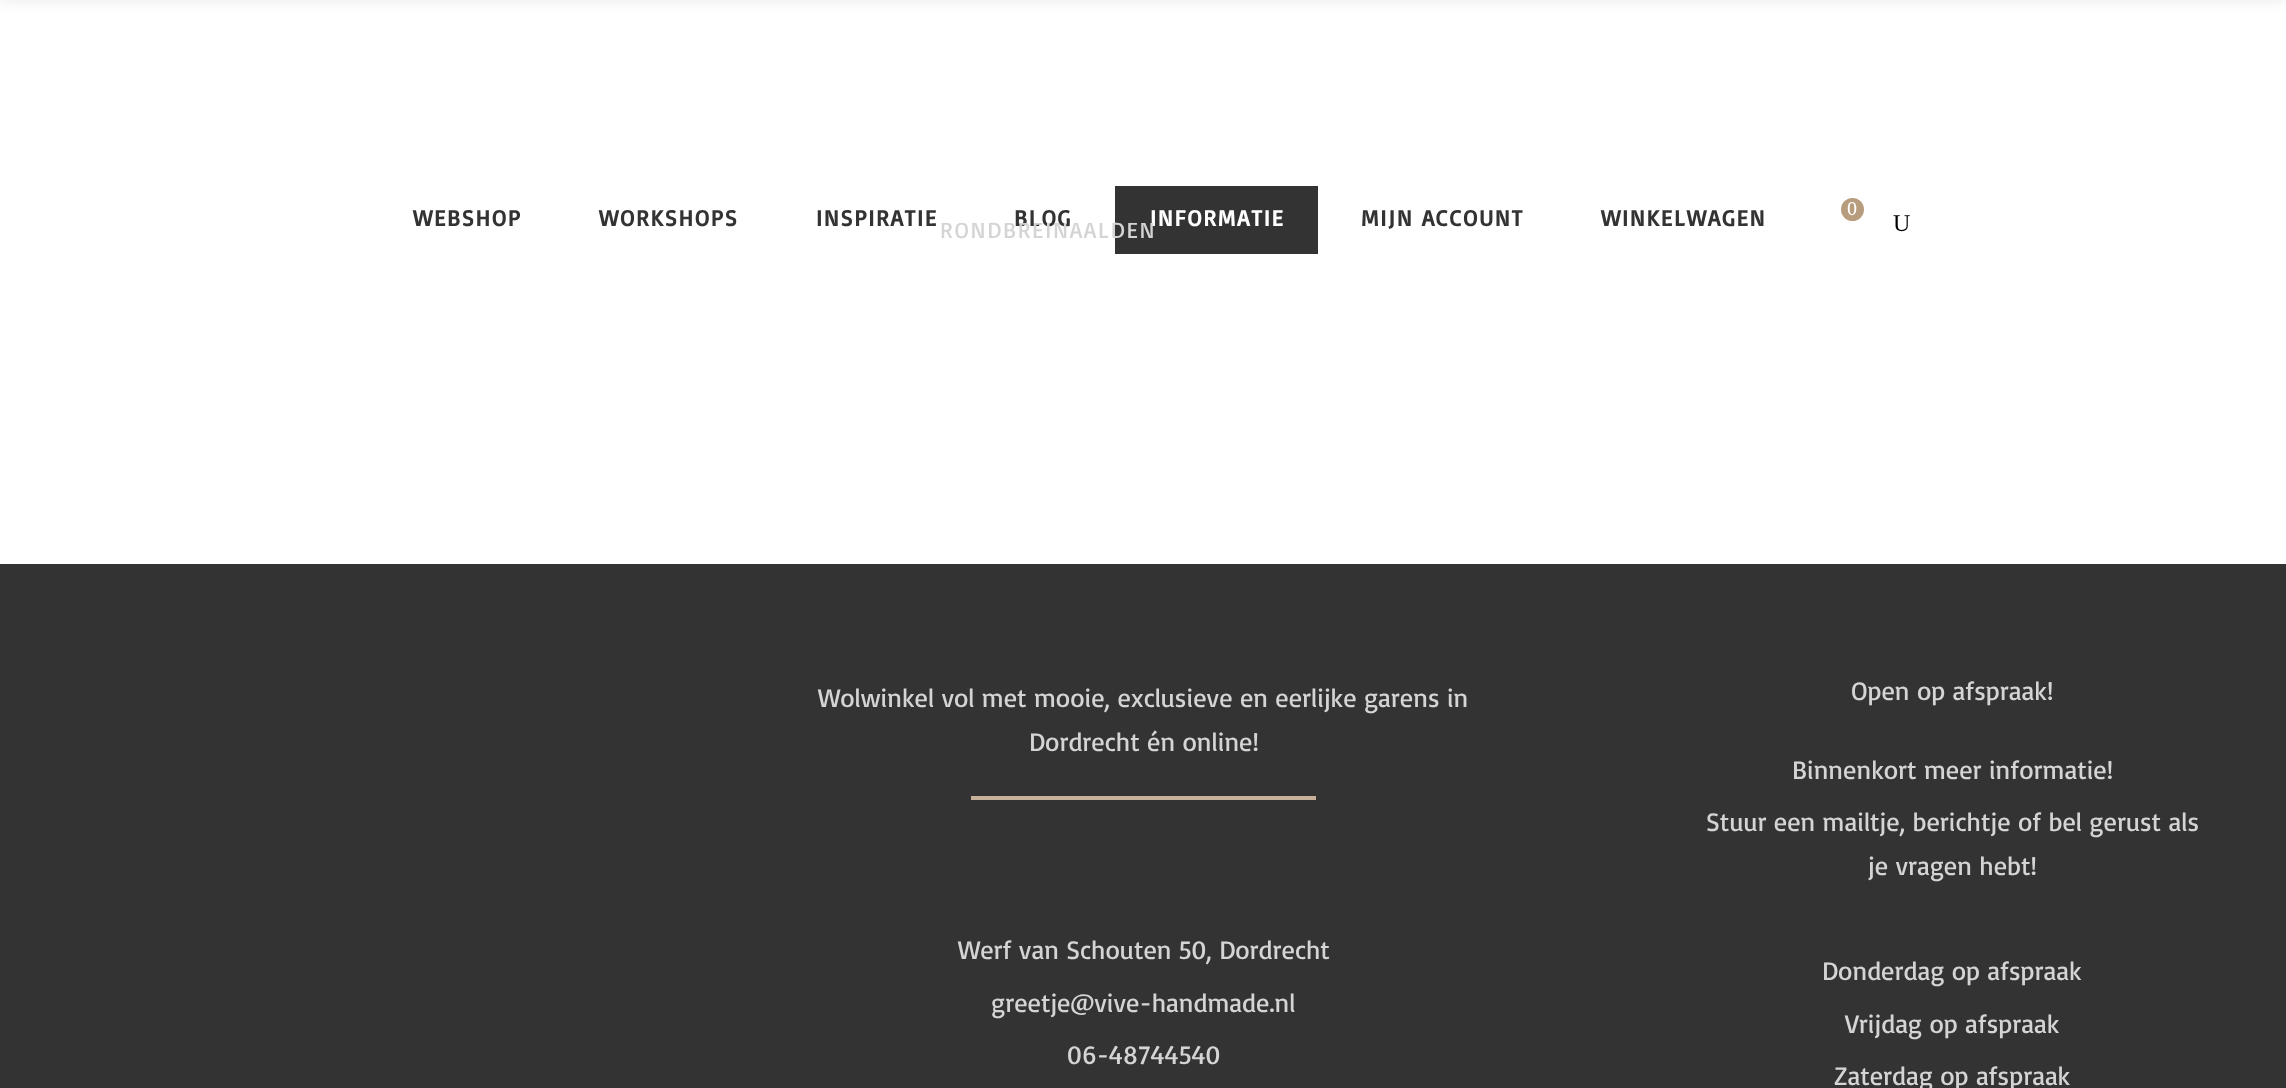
async function draw(canvas) {
  canvas.width = 2286;
  canvas.height = 1088;
  const ctx = canvas.getContext('2d');
  ctx.miterLimit = 4;
  ctx.fontKerning = 'normal';
  function label(s, x, y, font, color) {
    ctx.font = font;
    ctx.fillStyle = color;
    ctx.fillText(s, x, y);
  }
  function rect(x, y, w, h, color) {
    ctx.fillStyle = color;
    ctx.fillRect(x, y, w, h);
  }

  rect(0, 0, 2286, 1088, '#fff');
  ctx.letterSpacing = '1.75px';
  label('WEBSHOP', 413, 226, 'bold 22.75px Basic', '#333');
  label('WORKSHOPS', 599, 226, 'bold 22.75px Basic', '#333');
  label('INSPIRATIE', 816, 226, 'bold 22.75px Basic', '#333');
  label('BLOG', 1014, 226, 'bold 22.75px Basic', '#333');
  rect(1115, 186, 203, 68, '#333');
  label('INFORMATIE', 1150, 226, 'bold 22.75px Basic', '#fff');
  label('MIJN ACCOUNT', 1361, 226, 'bold 22.75px Basic', '#333');
  label('WINKELWAGEN', 1601, 226, 'bold 22.75px Basic', '#333');
  ctx.fillStyle = '#b79c7d';
  ctx.beginPath();
  ctx.arc(1852.5, 209.5, 11.5, 0, 2 * Math.PI);
  ctx.fill();
  ctx.letterSpacing = '0px';
  label('0', 1847, 215, '18px Noto Serif', '#fff');
  label('U', 1893, 231, '24px Liberation Serif', '#000');
  ctx.fillStyle = '#00000017';
  ctx.filter = 'blur(7px)';
  ctx.beginPath();
  ctx.rect(0, -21, 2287, 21);
  ctx.fill();
  ctx.filter = 'none';
  ctx.letterSpacing = '1.75px';
  label('RONDBREINAALDEN', 940, 238, '22.75px Basic', '#d4d4d4');
  rect(0, 564, 2286, 524, '#333');
  ctx.letterSpacing = '0px';
  label('Wolwinkel vol met mooie, exclusieve en eerlijke garens in', 818, 707, '26.25px Basic', '#d4d4d4');
  label('Dordrecht én online!', 1029, 751, '26.25px Basic', '#d4d4d4');
  rect(971, 796, 345, 4, '#c7b299');
  label('Werf van Schouten 50, Dordrecht', 958, 959, '26.25px Basic', '#d4d4d4');
  label('greetje@vive-handmade.nl', 991, 1012, '26.25px Basic', '#d4d4d4');
  label('06-48744540', 1067, 1064, '26.25px Basic', '#d4d4d4');
  label('Open op afspraak!', 1851, 700, '26.25px Basic', '#d4d4d4');
  label('Binnenkort meer informatie!', 1792, 779, '26.25px Basic', '#d4d4d4');
  label('Stuur een mailtje, berichtje of bel gerust als', 1706, 831, '26.25px Basic', '#d4d4d4');
  label('je vragen hebt!', 1868, 875, '26.25px Basic', '#d4d4d4');
  label('Donderdag op afspraak', 1822, 980, '26.25px Basic', '#d4d4d4');
  label('Vrijdag op afspraak', 1845, 1033, '26.25px Basic', '#d4d4d4');
  label('Zaterdag op afspraak', 1834, 1085, '26.25px Basic', '#d4d4d4');
}

draw(document.querySelector('canvas'));
